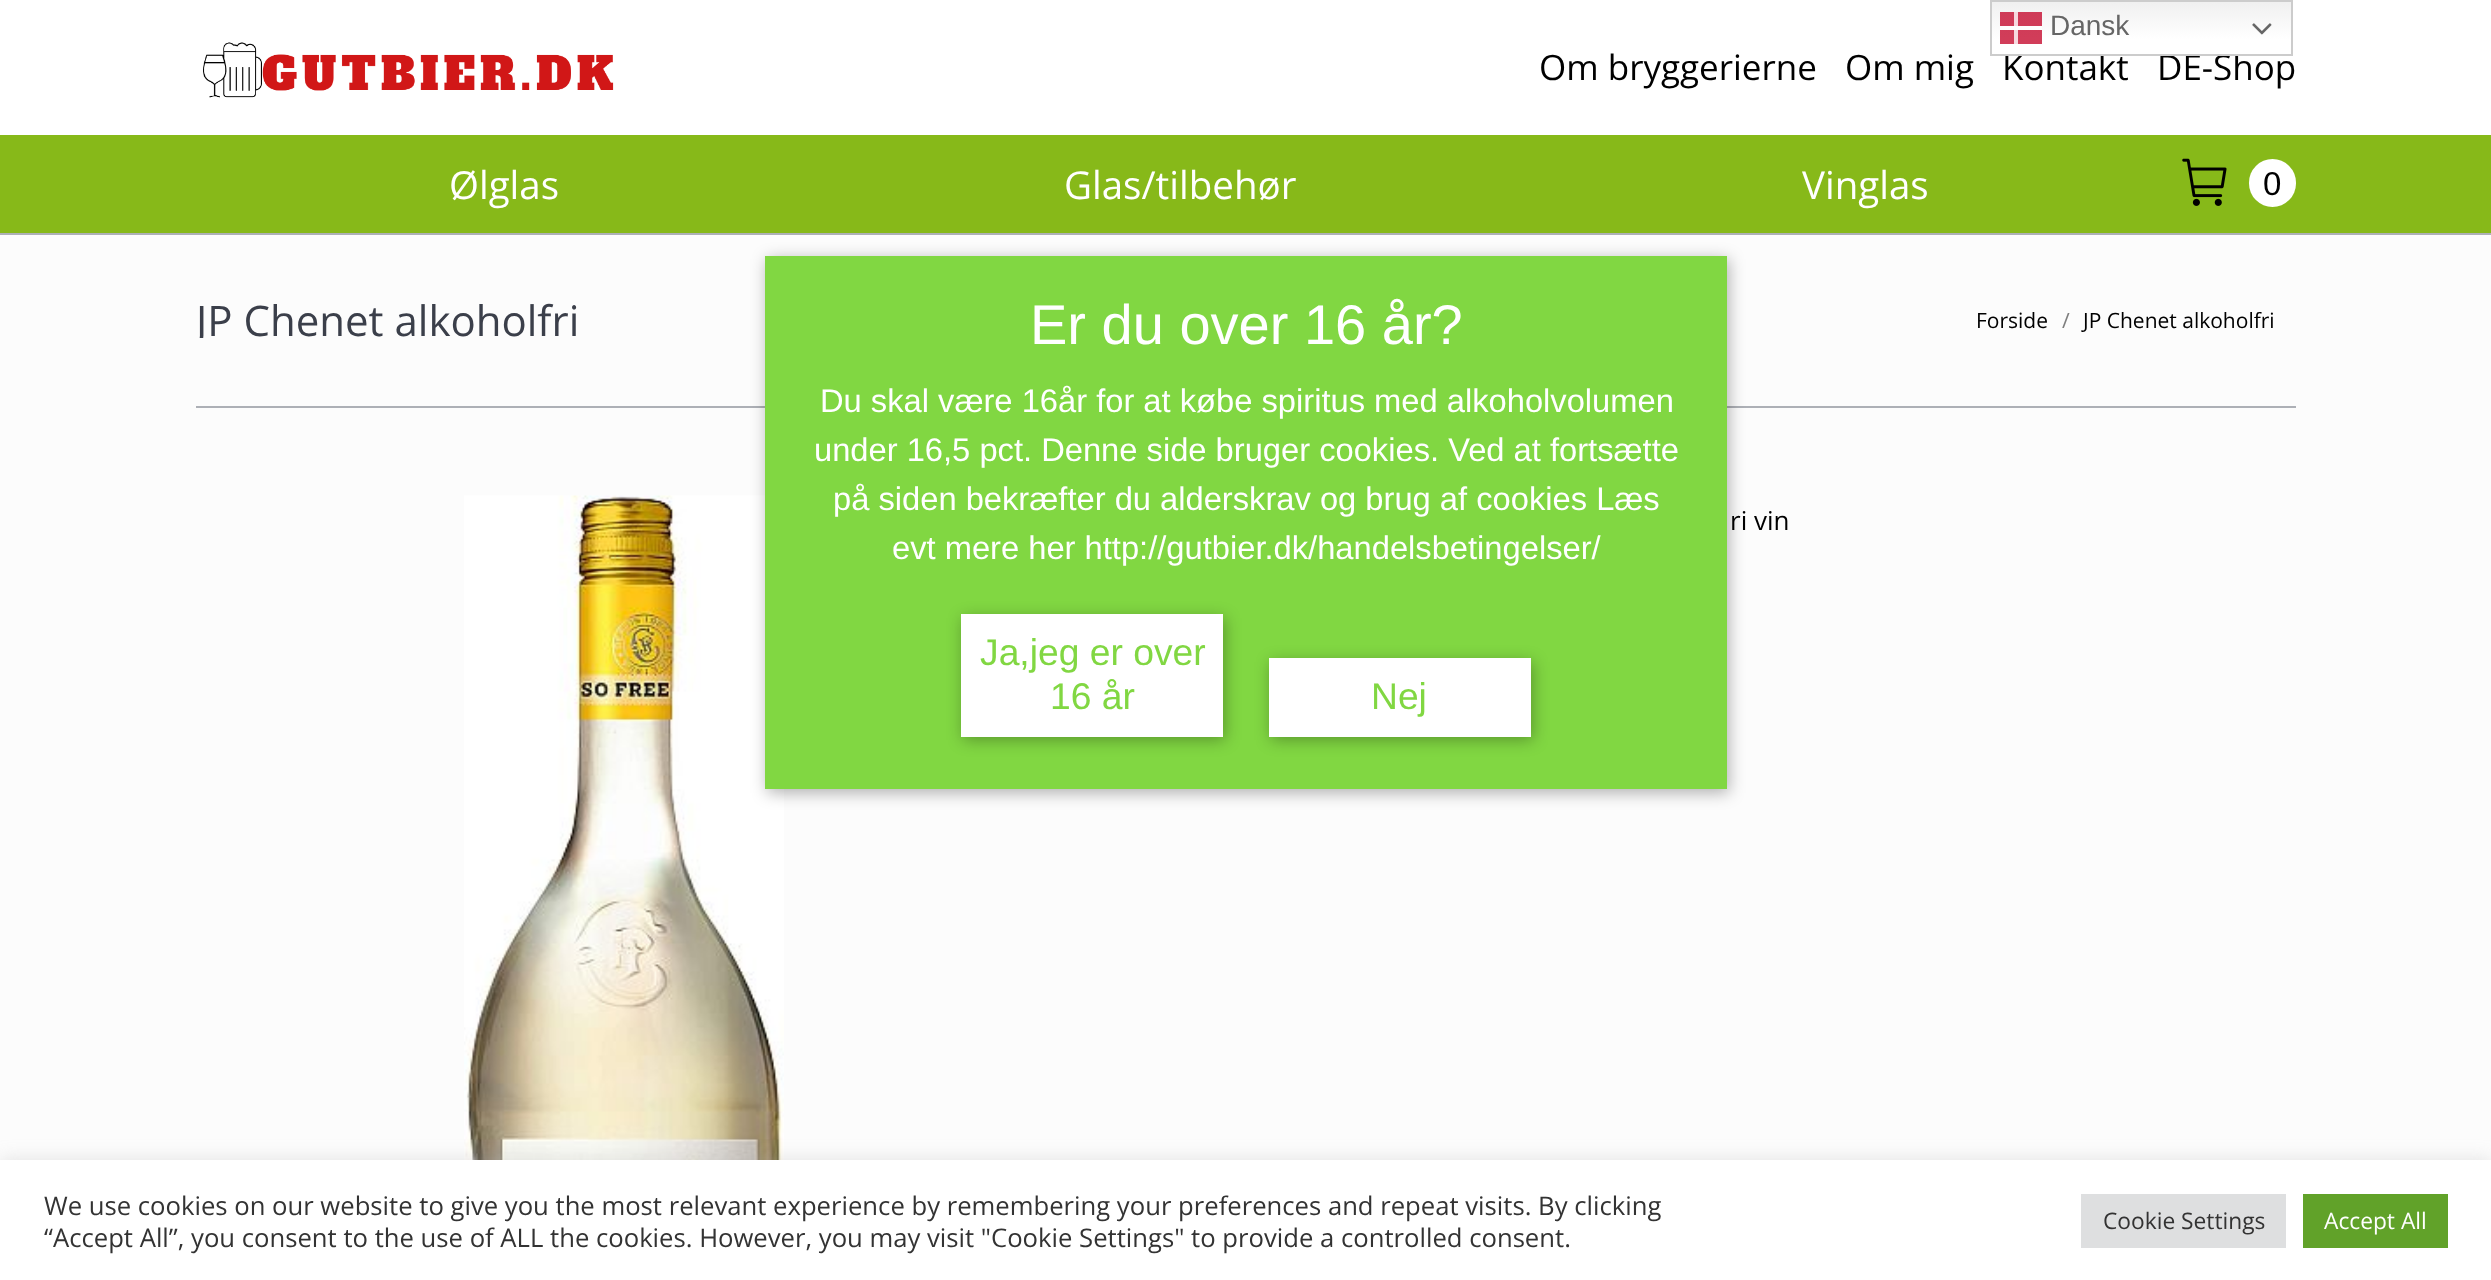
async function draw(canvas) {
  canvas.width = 2491;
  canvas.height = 1280;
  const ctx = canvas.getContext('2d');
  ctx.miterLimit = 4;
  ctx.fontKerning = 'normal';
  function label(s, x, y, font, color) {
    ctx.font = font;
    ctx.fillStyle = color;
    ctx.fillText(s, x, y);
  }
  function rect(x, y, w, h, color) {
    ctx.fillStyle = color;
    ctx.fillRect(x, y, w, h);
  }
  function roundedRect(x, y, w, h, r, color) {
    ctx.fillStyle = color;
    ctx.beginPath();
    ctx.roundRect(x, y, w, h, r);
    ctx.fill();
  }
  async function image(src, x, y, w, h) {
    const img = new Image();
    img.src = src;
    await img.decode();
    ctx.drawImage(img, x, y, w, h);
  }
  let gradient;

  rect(0, 0, 2491, 1280, '#fcfcfc');
  rect(0, 0, 2491, 135, '#fff');
  label('Kontakt', 2002, 80, '35px Open Sans', '#000');
  label('DE-Shop', 2157, 80, '35px Open Sans', '#000');
  gradient = ctx.createLinearGradient(2141, 0, 2141, 56);
  gradient.addColorStop(0, '#efefef');
  gradient.addColorStop(0.7, '#fff');
  ctx.fillStyle = gradient;
  ctx.fillRect(1992, 2, 299, 52);
  gradient = ctx.createLinearGradient(2141, 0, 2141, 56);
  gradient.addColorStop(0, '#ce3956');
  gradient.addColorStop(0.7, '#d13d59');
  ctx.fillStyle = gradient;
  ctx.fillRect(2000, 12, 42, 32);
  ctx.strokeStyle = '#ccc';
  ctx.lineWidth = 2;
  ctx.strokeRect(1991, 1, 301, 54);
  rect(2014, 12, 4, 32, '#f6d8de');
  label('Dansk', 2050, 35, '28px Liberation Sans', '#666');
  await image('assets/img1.png', 2252, 23, 20, 12);
  rect(2000, 26, 42, 4, '#fefefe');
  rect(0, 233, 2491, 2, '#adb0b6');
  await image('assets/img2.png', 203, 42, 411, 56);
  label('Om bryggerierne', 1539, 80, '35px Open Sans', '#000');
  label('Om mig', 1845, 80, '35px Open Sans', '#000');
  rect(0, 135, 2491, 98, '#87b919');
  label('Ølglas', 449, 199, '38.5px Open Sans', '#fff');
  label('Glas/tilbehør', 1064, 199, '38.5px Open Sans', '#fff');
  label('Vinglas', 1802, 199, '38.5px Open Sans', '#fff');
  await image('assets/img3.png', 2182, 158, 45, 48);
  roundedRect(2249, 159, 47, 48, 23.5, '#fff');
  label('0', 2263, 195, '33px Liberation Sans', '#000');
  ctx.save();
  ctx.beginPath();
  ctx.rect(196, 303, 383, 35);
  ctx.clip();
  label('JP Chenet alkoholfri', 196, 336, '42px Open Sans', '#3b3f4a');
  ctx.restore();
  label('Forside', 1976, 328, '21px Open Sans', '#000');
  label('/', 2062, 328, '21px Open Sans', '#7e7e7e');
  label('JP Chenet alkoholfri', 2083, 328, '21px Open Sans', '#000');
  rect(196, 406, 2100, 2, '#adb0b6');
  await image('assets/img4.png', 464, 495, 320, 665);
  label('ri vin', 1730, 530, '26px Open Sans', '#000');
  ctx.fillStyle = '#0000004d';
  ctx.filter = 'blur(8px)';
  ctx.beginPath();
  ctx.rect(767, 259, 962, 534);
  ctx.fill();
  ctx.filter = 'none';
  rect(765, 256, 962, 533, '#81d742');
  label('Er du over 16 år?', 1030, 344, '56px Liberation Sans', '#fff');
  label('Du skal være 16år for at købe spiritus med alkoholvolumen', 820, 412, '32.7px Liberation Sans', '#fff');
  label('under 16,5 pct. Denne side bruger cookies. Ved at fortsætte', 814, 461, '32.7px Liberation Sans', '#fff');
  label('på siden bekræfter du alderskrav og brug af cookies Læs', 833, 510, '32.7px Liberation Sans', '#fff');
  label('evt mere her http://gutbier.dk/handelsbetingelser/', 892, 559, '32.7px Liberation Sans', '#fff');
  ctx.fillStyle = '#0000004d';
  ctx.filter = 'blur(8px)';
  ctx.beginPath();
  ctx.rect(963, 618, 262, 122);
  ctx.fill();
  ctx.filter = 'none';
  rect(961, 614, 262, 123, '#fff');
  label('Ja,jeg er over', 980, 665, '37.25px Liberation Sans', '#81d742');
  label('16 år', 1050, 709, '37.25px Liberation Sans', '#81d742');
  ctx.fillStyle = '#0000004d';
  ctx.filter = 'blur(8px)';
  ctx.beginPath();
  ctx.rect(1271, 662, 262, 78);
  ctx.fill();
  ctx.filter = 'none';
  rect(1269, 658, 262, 79, '#fff');
  label('Nej', 1371, 709, '37.25px Liberation Sans', '#81d742');
  ctx.fillStyle = '#acabab4d';
  ctx.filter = 'blur(9px)';
  ctx.beginPath();
  ctx.rect(0, 1159, 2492, 120);
  ctx.fill();
  ctx.filter = 'none';
  rect(0, 1160, 2491, 120, '#fff');
  label('We use cookies on our website to give you the most relevant experience by remembering your preferences and repeat visits. By clicking', 44, 1215, '25.67px Open Sans', '#333');
  label('“Accept All”, you consent to the use of ALL the cookies. However, you may visit "Cookie Settings" to provide a controlled consent.', 44, 1247, '25.67px Open Sans', '#333');
  rect(2081, 1194, 205, 54, '#dedfe0');
  label('Cookie Settings', 2103, 1229, '22.75px Open Sans', '#333');
  rect(2303, 1194, 145, 54, '#61a229');
  label('Accept All', 2324, 1229, '22.75px Open Sans', '#fff');
}

draw(document.querySelector('canvas'));
